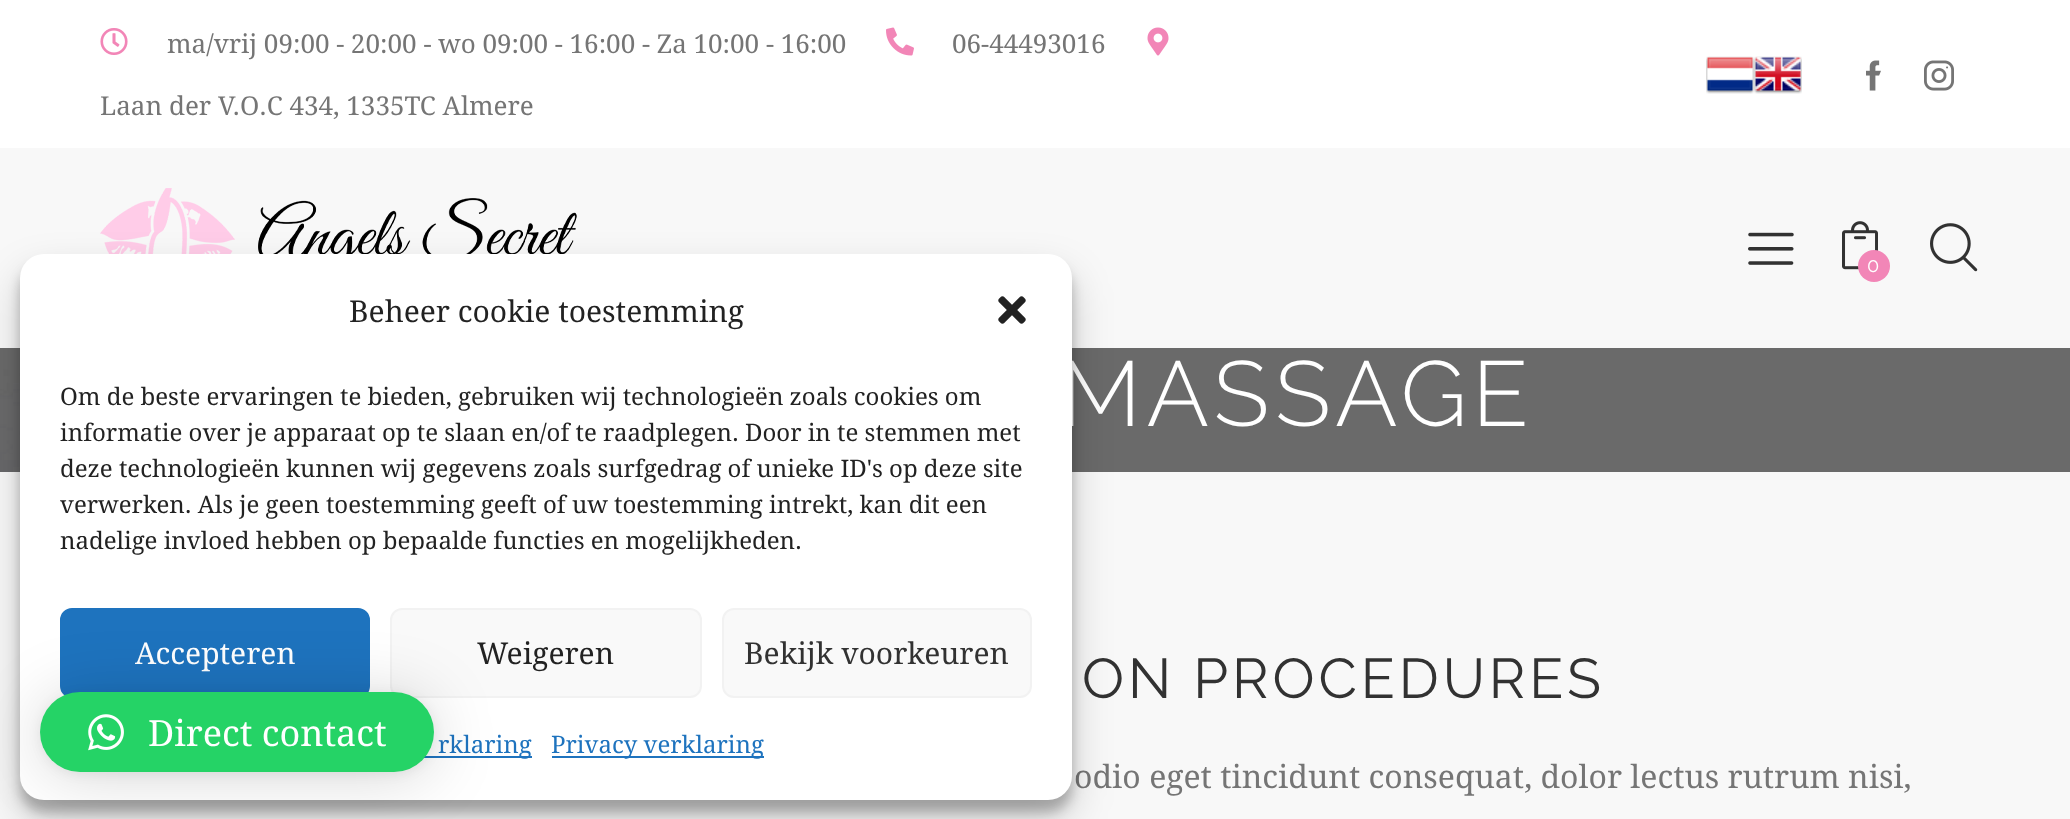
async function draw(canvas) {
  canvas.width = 2070;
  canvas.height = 819;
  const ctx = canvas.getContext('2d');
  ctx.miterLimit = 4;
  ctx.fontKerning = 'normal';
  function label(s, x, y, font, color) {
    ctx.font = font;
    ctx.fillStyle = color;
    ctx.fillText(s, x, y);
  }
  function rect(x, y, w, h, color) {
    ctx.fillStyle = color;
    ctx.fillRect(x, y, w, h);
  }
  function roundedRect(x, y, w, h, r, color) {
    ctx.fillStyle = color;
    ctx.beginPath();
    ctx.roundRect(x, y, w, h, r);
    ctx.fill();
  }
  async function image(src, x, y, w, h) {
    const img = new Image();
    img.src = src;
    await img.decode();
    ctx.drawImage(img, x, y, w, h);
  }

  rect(0, 0, 2070, 819, '#f8f8f8');
  rect(0, 0, 2070, 148, '#fff');
  await image('assets/img1.png', 100, 28, 28, 27);
  label('ma/vrij 09:00 - 20:00 - wo 09:00 - 16:00 - Za 10:00 - 16:00', 167, 53, '26px Droid Serif', '#757575');
  await image('assets/img2.png', 886, 27, 28, 29);
  label('06-44493016', 952, 53, '26px Droid Serif', '#757575');
  await image('assets/img3.png', 1147, 27, 22, 29);
  label('Laan der V.O.C 434, 1335TC Almere', 100, 115, '26px Droid Serif', '#757575');
  await image('assets/img4.png', 1706, 56, 48, 38);
  await image('assets/img5.png', 1754, 56, 48, 38);
  await image('assets/img6.png', 1866, 60, 15, 31);
  await image('assets/img7.png', 1924, 60, 30, 31);
  await image('assets/img8.png', 100, 188, 477, 66);
  await image('assets/img9.png', 1748, 232, 46, 33);
  await image('assets/img10.png', 1930, 223, 48, 49);
  await image('assets/img11.png', 1842, 221, 36, 49);
  ctx.fillStyle = '#f286b7';
  ctx.beginPath();
  ctx.arc(1874, 266, 16, 0, 2 * Math.PI);
  ctx.fill();
  label('0', 1867, 272, '20px Raleway', '#fff');
  await image('assets/img12.png', 0, 348, 2070, 124);
  ctx.letterSpacing = '5.75px';
  label('MASSAGE', 1060, 426, '300 92px Raleway', '#fff');
  ctx.letterSpacing = '3.9px';
  label('ON PROCEDURES', 1082, 698, '56px Raleway', '#323232');
  ctx.letterSpacing = '0px';
  label('odio eget tincidunt consequat, dolor lectus rutrum nisi,', 1074, 788, '32px Droid Serif', '#757575');
  ctx.fillStyle = '#0000003b';
  ctx.filter = 'blur(6px)';
  ctx.beginPath();
  ctx.roundRect(20, 266, 1052, 546, 24);
  ctx.fill();
  ctx.filter = 'none';
  ctx.fillStyle = '#00000030';
  ctx.filter = 'blur(20px)';
  ctx.beginPath();
  ctx.roundRect(20, 274, 1052, 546, 24);
  ctx.fill();
  ctx.filter = 'none';
  roundedRect(20, 254, 1052, 546, 24, '#fff');
  label('Beheer cookie toestemming', 349, 322, '30px Droid Serif', '#222');
  await image('assets/img13.png', 998, 296, 28, 28);
  label('Om de beste ervaringen te bieden, gebruiken wij technologieën zoals cookies om', 60, 405, '24px Droid Serif', '#222');
  label('informatie over je apparaat op te slaan en/of te raadplegen. Door in te stemmen met', 60, 441, '24px Droid Serif', '#222');
  label('deze technologieën kunnen wij gegevens zoals surfgedrag of unieke ID\'s op deze site', 60, 477, '24px Droid Serif', '#222');
  label('verwerken. Als je geen toestemming geeft of uw toestemming intrekt, kan dit een', 60, 513, '24px Droid Serif', '#222');
  label('nadelige invloed hebben op bepaalde functies en mogelijkheden.', 60, 549, '24px Droid Serif', '#222');
  ctx.fillStyle = '#1e73be';
  ctx.beginPath();
  ctx.roundRect(61, 609, 308, 88, 11);
  ctx.fill();
  ctx.strokeStyle = '#1e73be';
  ctx.lineWidth = 2;
  ctx.stroke();
  label('Accepteren', 135, 664, '30px Droid Serif', '#fff');
  ctx.fillStyle = '#f9f9f9';
  ctx.beginPath();
  ctx.roundRect(391, 609, 310, 88, 11);
  ctx.fill();
  ctx.strokeStyle = '#f2f2f2';
  ctx.stroke();
  label('Weigeren', 477, 664, '30px Droid Serif', '#222');
  ctx.fillStyle = '#f9f9f9';
  ctx.beginPath();
  ctx.roundRect(723, 609, 308, 88, 11);
  ctx.fill();
  ctx.stroke();
  label('Bekijk voorkeuren', 744, 664, '30px Droid Serif', '#323232');
  rect(424, 756, 108, 2, '#1e73be');
  label('rklaring', 438, 753, '24px Droid Serif', '#1e73be');
  rect(552, 756, 212, 2, '#1e73be');
  label('Privacy verklaring', 551, 753, '24px Droid Serif', '#1e73be');
  ctx.fillStyle = '#00000029';
  ctx.filter = 'blur(32px)';
  ctx.beginPath();
  ctx.roundRect(40, 696, 394, 80, 40);
  ctx.fill();
  ctx.filter = 'none';
  ctx.fillStyle = '#0000000f';
  ctx.filter = 'blur(6px)';
  ctx.beginPath();
  ctx.roundRect(40, 694, 394, 80, 40);
  ctx.fill();
  ctx.filter = 'none';
  roundedRect(40, 692, 394, 80, 40, '#25d366');
  await image('assets/img14.png', 88, 714, 36, 37);
  label('Direct contact', 148, 746, '36px Droid Serif', '#fff');
}

draw(document.querySelector('canvas'));
